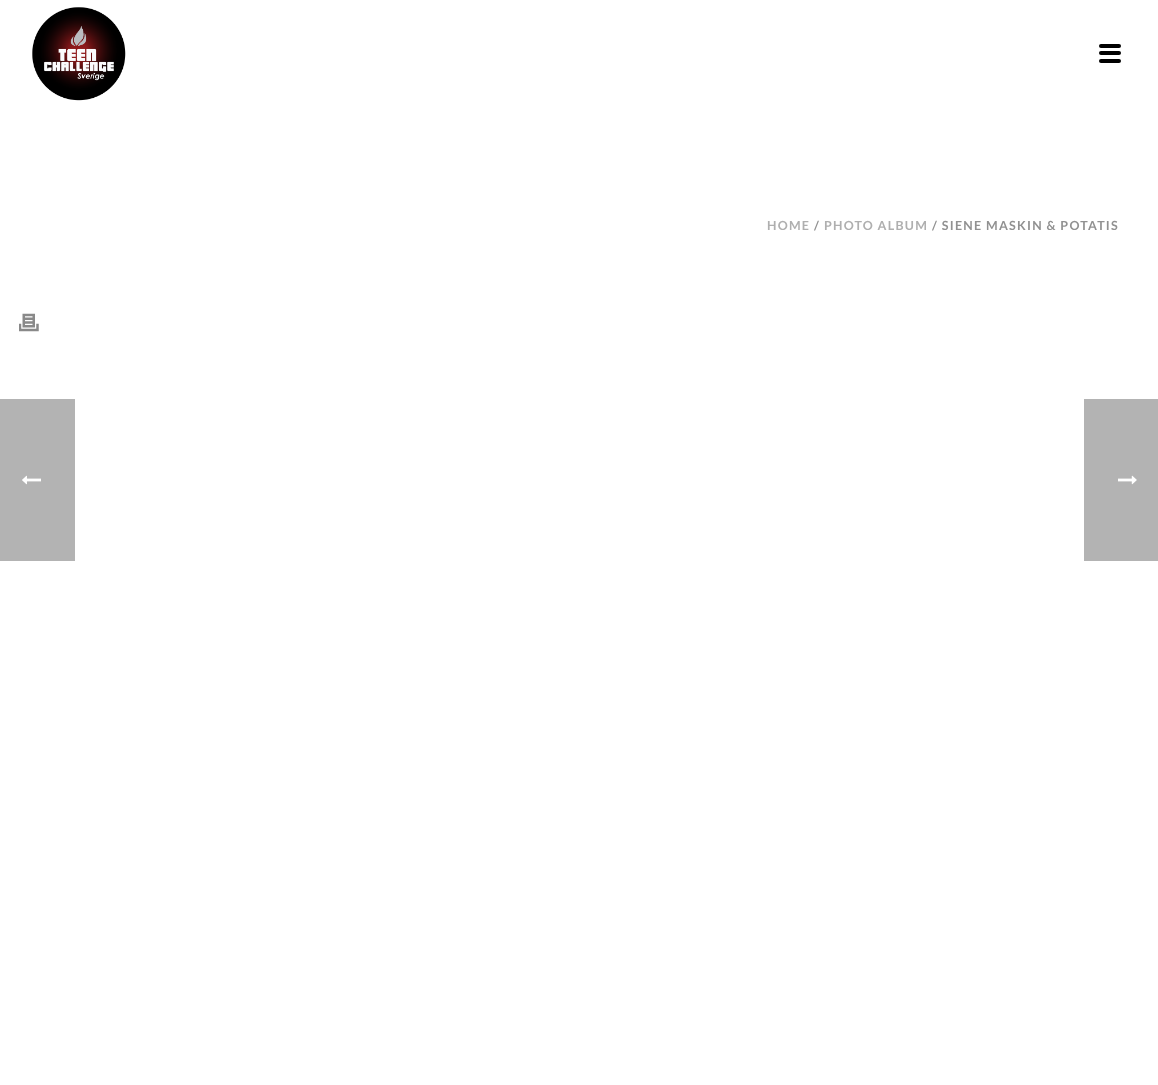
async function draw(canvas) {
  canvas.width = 1158;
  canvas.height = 1085;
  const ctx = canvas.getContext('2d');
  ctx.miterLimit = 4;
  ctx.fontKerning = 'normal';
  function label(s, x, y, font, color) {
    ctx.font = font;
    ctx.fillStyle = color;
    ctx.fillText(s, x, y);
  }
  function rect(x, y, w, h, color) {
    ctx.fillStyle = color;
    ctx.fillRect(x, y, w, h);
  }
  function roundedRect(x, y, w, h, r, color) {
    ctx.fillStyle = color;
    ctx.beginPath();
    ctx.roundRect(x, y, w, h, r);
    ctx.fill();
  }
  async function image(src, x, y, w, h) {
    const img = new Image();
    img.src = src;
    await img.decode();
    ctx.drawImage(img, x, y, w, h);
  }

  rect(0, 0, 1158, 1085, '#fff');
  await image('assets/img1.png', 32, 7, 94, 94);
  roundedRect(1099, 44, 22, 4, 2, '#000');
  roundedRect(1099, 51, 22, 4, 2, '#000');
  roundedRect(1099, 59, 22, 4, 2, '#000');
  ctx.letterSpacing = '1.25px';
  label('HOME', 767, 230, 'bold 12.5px Lato', '#afafaf');
  label('/', 814, 230, 'bold 12.5px Lato', '#919191');
  label('PHOTO ALBUM', 824, 230, 'bold 12.5px Lato', '#afafaf');
  label('/ SIENE MASKIN & POTATIS', 932, 230, 'bold 12.5px Lato', '#919191');
  await image('assets/img2.png', 19, 313, 20, 19);
  rect(0, 399, 75, 162, '#b3b3b3');
  await image('assets/img3.png', 22, 475, 19, 10);
  rect(1084, 399, 74, 162, '#b3b3b3');
  await image('assets/img4.png', 1118, 475, 19, 10);
}

draw(document.querySelector('canvas'));
